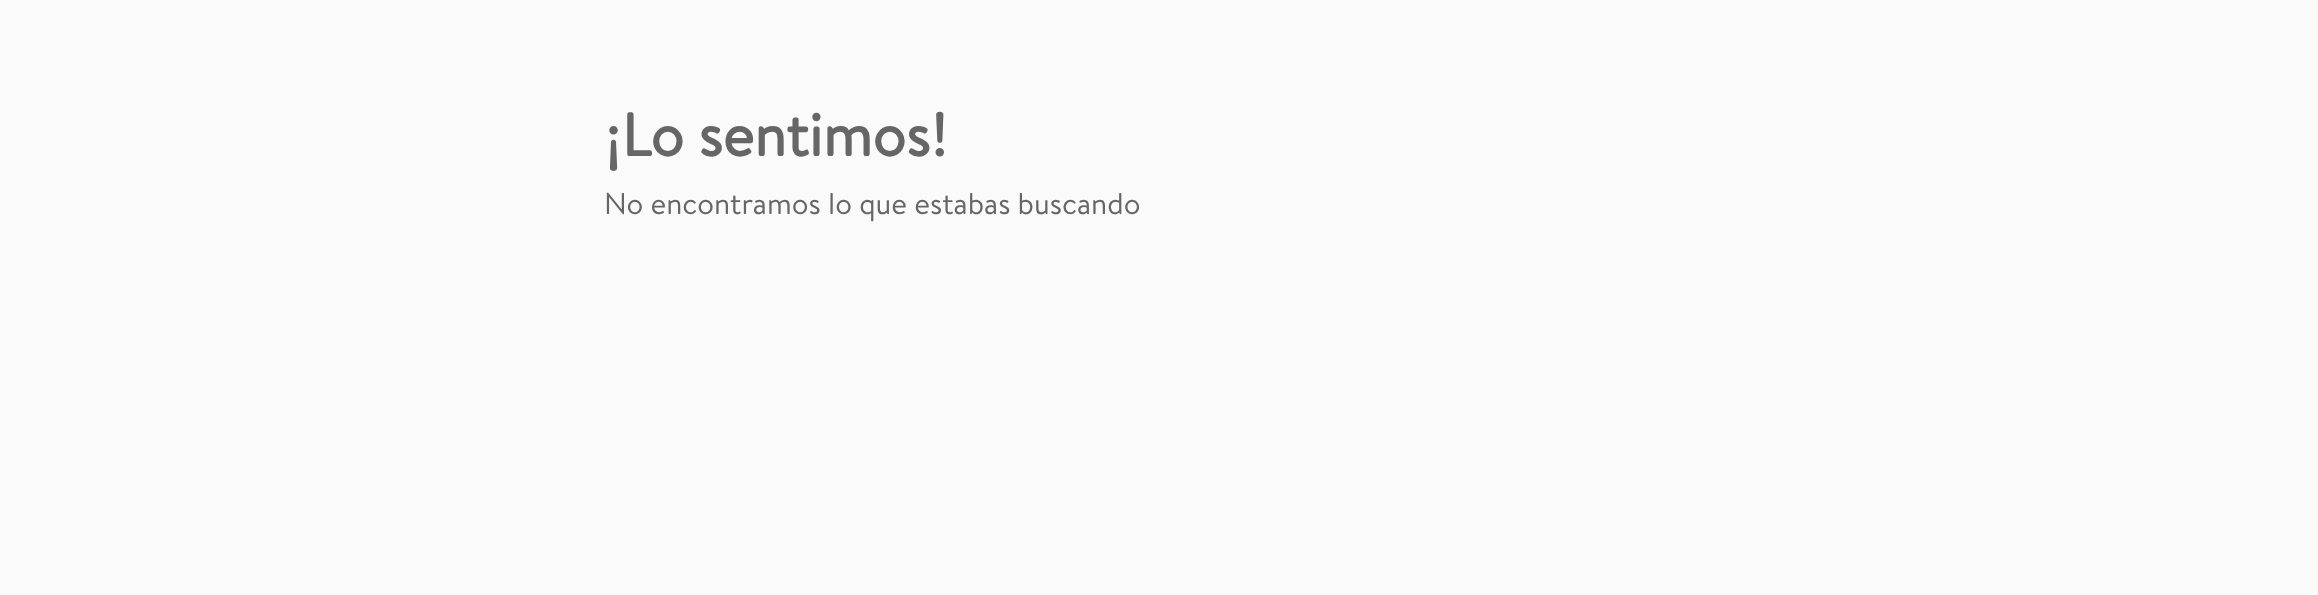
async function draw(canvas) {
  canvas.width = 2318;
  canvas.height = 595;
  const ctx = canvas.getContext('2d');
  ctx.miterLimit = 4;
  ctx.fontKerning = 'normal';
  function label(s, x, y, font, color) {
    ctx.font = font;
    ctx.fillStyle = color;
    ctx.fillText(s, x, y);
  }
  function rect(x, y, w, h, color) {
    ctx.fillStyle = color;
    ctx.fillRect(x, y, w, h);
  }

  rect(0, 0, 2318, 595, '#fafafa');
  label('¡Lo sentimos!', 604, 156, 'bold 60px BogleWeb', '#666');
  label('No encontramos lo que estabas buscando', 604, 214, '30px BogleWeb', '#666');
}

draw(document.querySelector('canvas'));
